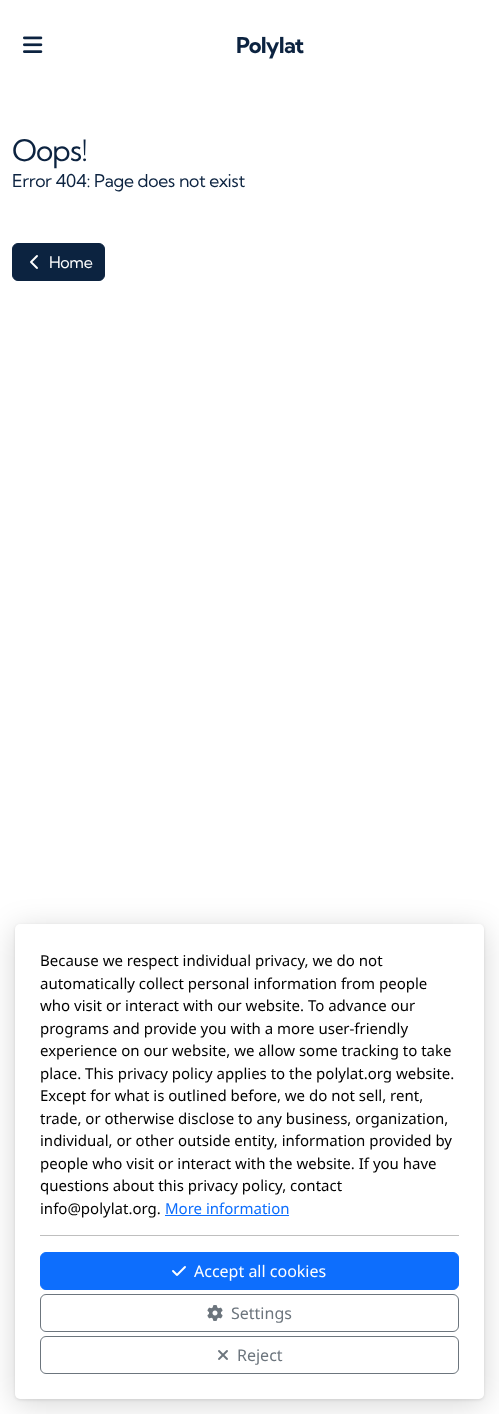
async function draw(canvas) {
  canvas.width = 499;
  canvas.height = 1414;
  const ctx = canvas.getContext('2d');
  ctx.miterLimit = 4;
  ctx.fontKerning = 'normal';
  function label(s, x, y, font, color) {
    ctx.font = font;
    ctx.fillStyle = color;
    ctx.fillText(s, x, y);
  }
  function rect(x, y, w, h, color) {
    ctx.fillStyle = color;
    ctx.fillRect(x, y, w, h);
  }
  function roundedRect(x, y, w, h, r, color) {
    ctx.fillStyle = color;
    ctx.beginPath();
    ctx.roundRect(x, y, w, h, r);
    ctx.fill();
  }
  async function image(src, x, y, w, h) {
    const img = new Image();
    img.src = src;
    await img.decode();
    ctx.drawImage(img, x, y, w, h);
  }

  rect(0, 0, 499, 1414, '#fff');
  await image('assets/img1.png', 23, 36, 20, 17);
  ctx.letterSpacing = '-0.75px';
  label('Polylat', 236, 53, 'bold 22px Kumbh Sans', '#0c2340');
  ctx.letterSpacing = '-1px';
  label('Oops!', 12, 161, '29.5px Kumbh Sans', '#0c2340');
  ctx.letterSpacing = '-0.35px';
  label('Error 404: Page does not exist', 12, 187, '17.6px Kumbh Sans', '#0c2340');
  ctx.beginPath();
  ctx.roundRect(12.5, 243.5, 92, 37, 5.5);
  ctx.fill();
  ctx.strokeStyle = '#0c2340';
  ctx.stroke();
  await image('assets/img2.png', 30, 255, 8, 14);
  label('Home', 49, 268, '16px Kumbh Sans', '#fff');
  ctx.fillStyle = '#00000029';
  ctx.filter = 'blur(15px)';
  ctx.beginPath();
  ctx.roundRect(15, 929, 469, 475, 5);
  ctx.fill();
  ctx.filter = 'none';
  ctx.fillStyle = '#0000001a';
  ctx.filter = 'blur(1.5px)';
  ctx.beginPath();
  ctx.roundRect(15, 925, 469, 475, 5);
  ctx.fill();
  ctx.filter = 'none';
  roundedRect(15, 924, 469, 475, 5, '#fff');
  ctx.letterSpacing = '0px';
  label('Because we respect individual privacy, we do not', 40, 966, '15px Noto Sans', '#000');
  label('automatically collect personal information from people', 40, 989, '15px Noto Sans', '#000');
  label('who visit or interact with our website. To advance our', 40, 1011, '15px Noto Sans', '#000');
  label('programs and provide you with a more user-friendly', 40, 1034, '15px Noto Sans', '#000');
  label('experience on our website, we allow some tracking to take', 40, 1056, '15px Noto Sans', '#000');
  label('place. This privacy policy applies to the polylat.org website.', 40, 1079, '15px Noto Sans', '#000');
  label('Except for what is outlined before, we do not sell, rent,', 40, 1101, '15px Noto Sans', '#000');
  label('trade, or otherwise disclose to any business, organization,', 40, 1124, '15px Noto Sans', '#000');
  label('individual, or other outside entity, information provided by', 40, 1146, '15px Noto Sans', '#000');
  label('people who visit or interact with the website. If you have', 40, 1169, '15px Noto Sans', '#000');
  label('questions about this privacy policy, contact', 40, 1191, '15px Noto Sans', '#000');
  label('info@polylat.org.', 40, 1214, '15px Noto Sans', '#000');
  label('More information', 165, 1214, '15px Noto Sans', '#0d6efd');
  rect(165, 1215, 124, 1, '#0d6efd');
  rect(40, 1235, 419, 1, '#bfbfbf');
  ctx.fillStyle = '#0d6efd';
  ctx.beginPath();
  ctx.roundRect(40.5, 1252.5, 418, 37, 5.5);
  ctx.fill();
  ctx.strokeStyle = '#0d6efd';
  ctx.stroke();
  await image('assets/img3.png', 172, 1266, 14, 10);
  label('Accept all cookies', 194, 1277, '16px Noto Sans', '#fff');
  ctx.beginPath();
  ctx.roundRect(40.5, 1294.5, 418, 37, 5.5);
  ctx.strokeStyle = '#6c757d';
  ctx.stroke();
  await image('assets/img4.png', 207, 1305, 16, 16);
  label('Settings', 231, 1319, '16px Noto Sans', '#6c757d');
  ctx.beginPath();
  ctx.roundRect(40.5, 1336.5, 418, 37, 5.5);
  ctx.stroke();
  await image('assets/img5.png', 218, 1350, 10, 10);
  label('Reject', 237, 1361, '16px Noto Sans', '#6c757d');
}

draw(document.querySelector('canvas'));
